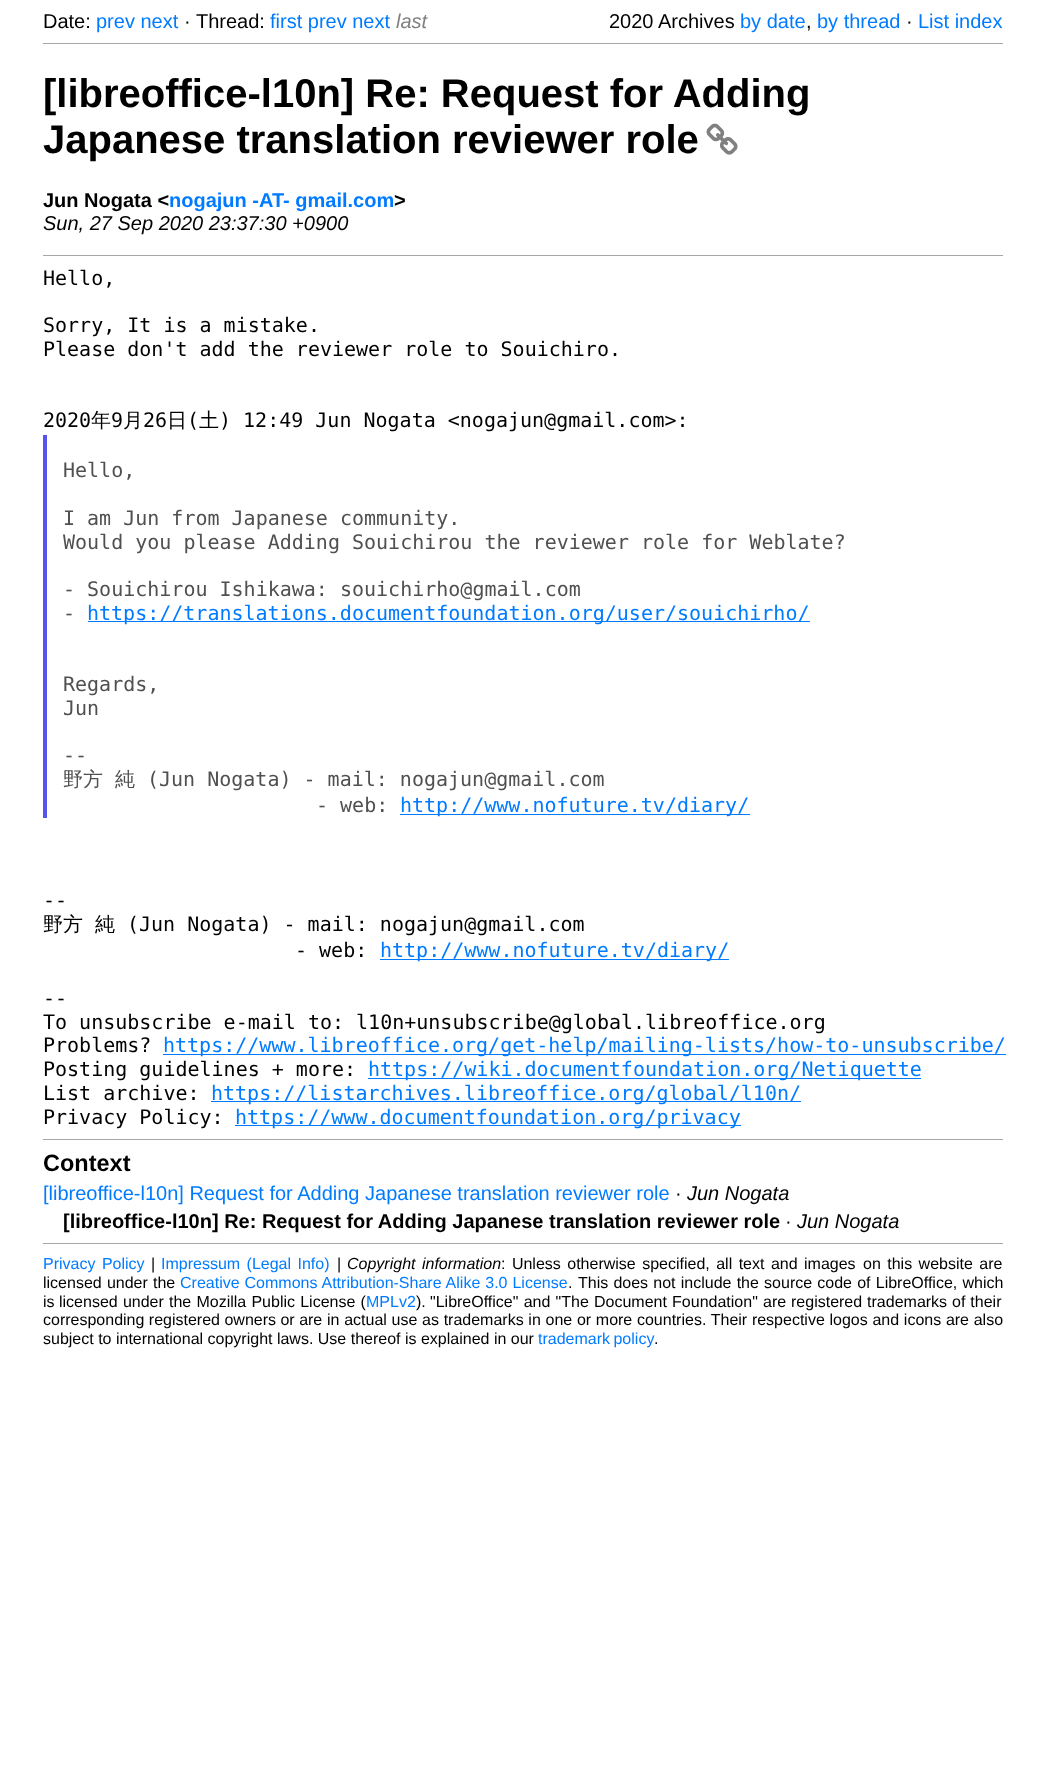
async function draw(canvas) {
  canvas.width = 1045;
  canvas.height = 1772;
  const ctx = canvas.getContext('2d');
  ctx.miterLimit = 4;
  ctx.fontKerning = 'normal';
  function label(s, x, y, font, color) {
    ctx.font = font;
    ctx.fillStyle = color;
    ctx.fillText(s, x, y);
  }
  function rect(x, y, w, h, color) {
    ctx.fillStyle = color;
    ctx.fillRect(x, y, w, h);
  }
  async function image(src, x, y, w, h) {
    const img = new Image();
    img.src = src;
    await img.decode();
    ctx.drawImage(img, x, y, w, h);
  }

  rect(0, 0, 1045, 1772, '#fff');
  label('Date:', 43, 28, '20px Liberation Sans', '#000');
  label('prev next', 96, 28, '20px Liberation Sans', '#007bff');
  label('·', 184, 28, '20px Liberation Sans', '#000');
  label('Thread:', 196, 28, '20px Liberation Sans', '#000');
  label('first prev next', 270, 28, '20px Liberation Sans', '#007bff');
  label('last', 396, 28, 'italic 20px Liberation Sans', '#808080');
  label('2020 Archives', 609, 28, '20px Liberation Sans', '#000');
  label('by date', 740, 28, '20px Liberation Sans', '#007bff');
  label('by thread', 817, 28, '20px Liberation Sans', '#007bff');
  label('·', 906, 28, '20px Liberation Sans', '#000');
  label('List index', 918, 28, '20px Liberation Sans', '#007bff');
  label(',', 806, 28, '20px Liberation Sans', '#000');
  rect(43, 43, 960, 1, '#a6a6a6');
  label('[libreoffice-l10n] Re: Request for Adding', 43, 107, 'bold 40px Liberation Sans', '#000');
  label('Japanese translation reviewer role', 43, 153, 'bold 40px Liberation Sans', '#000');
  await image('assets/img1.png', 706, 123, 32, 32);
  label('Jun Nogata <', 43, 207, 'bold 20px Liberation Sans', '#000');
  label('nogajun -AT- gmail.com', 169, 207, 'bold 20px Liberation Sans', '#007bff');
  label('>', 394, 207, 'bold 20px Liberation Sans', '#000');
  label('Sun, 27 Sep 2020 23:37:30 +0900', 43, 230, 'italic 20px Liberation Sans', '#000');
  rect(43, 255, 960, 1, '#a6a6a6');
  label('Hello,', 43, 285, '20px DejaVu Sans Mono', '#000');
  label('Sorry, It is a mistake.', 43, 332, '20px DejaVu Sans Mono', '#000');
  label('Please don\'t add the reviewer role to Souichiro.', 43, 356, '20px DejaVu Sans Mono', '#000');
  label('2020', 43, 427, '20px DejaVu Sans Mono', '#000');
  label('年', 91, 427, '500 20px WenQuanYi Zen Hei', '#000');
  label('9', 111, 427, '20px DejaVu Sans Mono', '#000');
  label('月', 123, 427, '500 20px WenQuanYi Zen Hei', '#000');
  label('26', 143, 427, '20px DejaVu Sans Mono', '#000');
  label('日', 167, 427, '500 20px WenQuanYi Zen Hei', '#000');
  label('(', 187, 427, '20px DejaVu Sans Mono', '#000');
  label('土', 199, 427, '500 20px WenQuanYi Zen Hei', '#000');
  label(') 12:49 Jun Nogata <nogajun@gmail.com>:', 219, 427, '20px DejaVu Sans Mono', '#000');
  rect(43, 435, 4, 383, '#55e');
  label('Hello,', 63, 477, '20px DejaVu Sans Mono', '#505050');
  label('I am Jun from Japanese community.', 63, 525, '20px DejaVu Sans Mono', '#505050');
  label('Would you please Adding Souichirou the reviewer role for Weblate?', 63, 549, '20px DejaVu Sans Mono', '#505050');
  label('- Souichirou Ishikawa: souichirho@gmail.com', 63, 596, '20px DejaVu Sans Mono', '#505050');
  label('-', 63, 620, '20px DejaVu Sans Mono', '#505050');
  rect(88, 621, 722, 1, '#007bff');
  label('https://translations.documentfoundation.org/user/souichirho/', 87, 620, '20px DejaVu Sans Mono', '#007bff');
  label('Regards,', 63, 691, '20px DejaVu Sans Mono', '#505050');
  label('Jun', 63, 715, '20px DejaVu Sans Mono', '#505050');
  label('--', 63, 762, '20px DejaVu Sans Mono', '#505050');
  label('野方', 63, 786, '500 20px WenQuanYi Zen Hei', '#505050');
  label('純', 115, 786, '500 20px WenQuanYi Zen Hei', '#505050');
  label('(Jun Nogata) - mail: nogajun@gmail.com', 147, 786, '20px DejaVu Sans Mono', '#505050');
  label('- web:', 316, 812, '20px DejaVu Sans Mono', '#505050');
  rect(400, 814, 350, 1, '#007bff');
  label('http://www.nofuture.tv/diary/', 400, 812, '20px DejaVu Sans Mono', '#007bff');
  label('--', 43, 907, '20px DejaVu Sans Mono', '#000');
  label('野方', 43, 931, '500 20px WenQuanYi Zen Hei', '#000');
  label('純', 95, 931, '500 20px WenQuanYi Zen Hei', '#000');
  label('(Jun Nogata) - mail: nogajun@gmail.com', 127, 931, '20px DejaVu Sans Mono', '#000');
  label('- web:', 295, 957, '20px DejaVu Sans Mono', '#000');
  rect(380, 959, 349, 1, '#007bff');
  label('http://www.nofuture.tv/diary/', 380, 957, '20px DejaVu Sans Mono', '#007bff');
  label('--', 43, 1005, '20px DejaVu Sans Mono', '#000');
  label('To unsubscribe e-mail to: l10n+unsubscribe@global.libreoffice.org', 43, 1029, '20px DejaVu Sans Mono', '#000');
  label('Problems?', 43, 1052, '20px DejaVu Sans Mono', '#000');
  rect(163, 1054, 843, 1, '#007bff');
  label('https://www.libreoffice.org/get-help/mailing-lists/how-to-unsubscribe/', 163, 1052, '20px DejaVu Sans Mono', '#007bff');
  label('Posting guidelines + more:', 43, 1076, '20px DejaVu Sans Mono', '#000');
  rect(368, 1078, 553, 1, '#007bff');
  label('https://wiki.documentfoundation.org/Netiquette', 368, 1076, '20px DejaVu Sans Mono', '#007bff');
  label('List archive:', 43, 1100, '20px DejaVu Sans Mono', '#000');
  rect(211, 1101, 590, 1, '#007bff');
  label('https://listarchives.libreoffice.org/global/l10n/', 211, 1100, '20px DejaVu Sans Mono', '#007bff');
  label('Privacy Policy:', 43, 1124, '20px DejaVu Sans Mono', '#000');
  rect(235, 1125, 506, 1, '#007bff');
  label('https://www.documentfoundation.org/privacy', 235, 1124, '20px DejaVu Sans Mono', '#007bff');
  rect(43, 1139, 960, 1, '#a6a6a6');
  label('Context', 43, 1171, 'bold 23.5px Liberation Sans', '#000');
  label('[libreoffice-l10n] Request for Adding Japanese translation reviewer role', 43, 1200, '20px Liberation Sans', '#007bff');
  label('·', 675, 1200, '20px Liberation Sans', '#000');
  label('Jun Nogata', 687, 1200, 'italic 20px Liberation Sans', '#000');
  label('[libreoffice-l10n] Re: Request for Adding Japanese translation reviewer role', 63, 1228, 'bold 20px Liberation Sans', '#000');
  label('·', 785, 1228, '20px Liberation Sans', '#000');
  label('Jun Nogata', 797, 1228, 'italic 20px Liberation Sans', '#000');
  rect(43, 1243, 960, 1, '#a6a6a6');
  ctx.wordSpacing = '2px';
  label('Privacy Policy', 43, 1269, '16px Liberation Sans', '#007bff');
  ctx.wordSpacing = '0px';
  label('|', 151, 1269, '16px Liberation Sans', '#000');
  ctx.wordSpacing = '2px';
  label('Impressum (Legal Info)', 161, 1269, '16px Liberation Sans', '#007bff');
  ctx.wordSpacing = '0px';
  label('|', 337, 1269, '16px Liberation Sans', '#000');
  ctx.wordSpacing = '2px';
  label('Copyright information', 347, 1269, 'italic 16px Liberation Sans', '#000');
  label(': Unless otherwise specified, all text and images', 501, 1269, '16px Liberation Sans', '#000');
  label('on this website are', 863, 1269, '16px Liberation Sans', '#000');
  ctx.wordSpacing = '0.75px';
  label('licensed under the', 43, 1288, '16px Liberation Sans', '#000');
  ctx.wordSpacing = '0.5px';
  label('Creative Commons Attribution-Share Alike 3.0 License', 180, 1288, '16px Liberation Sans', '#007bff');
  ctx.wordSpacing = '0px';
  label('.', 568, 1288, '16px Liberation Sans', '#000');
  ctx.wordSpacing = '0.75px';
  label('This does not include the source code of LibreOffice, which', 578, 1288, '16px Liberation Sans', '#000');
  ctx.wordSpacing = '0px';
  label('is', 43, 1307, '16px Liberation Sans', '#000');
  ctx.wordSpacing = '0.75px';
  label('licensed under the Mozilla Public License (', 59, 1307, '16px Liberation Sans', '#000');
  ctx.wordSpacing = '0px';
  label('MPLv2', 366, 1307, '16px Liberation Sans', '#007bff');
  label(').', 416, 1307, '16px Liberation Sans', '#000');
  ctx.wordSpacing = '0.75px';
  label('"LibreOffice" and "The Document Foundation" are', 430, 1307, '16px Liberation Sans', '#000');
  ctx.wordSpacing = '0.5px';
  label('registered trademarks of their', 791, 1307, '16px Liberation Sans', '#000');
  ctx.wordSpacing = '0px';
  label('corresponding registered owners or are', 43, 1325, '16px Liberation Sans', '#000');
  ctx.wordSpacing = '0.25px';
  label('in actual use as trademarks in one or more countries. Their respective logos and icons are also', 327, 1325, '16px Liberation Sans', '#000');
  ctx.wordSpacing = '0px';
  label('subject to international copyright laws. Use thereof is explained in our', 43, 1344, '16px Liberation Sans', '#000');
  ctx.wordSpacing = '-1px';
  label('trademark policy', 538, 1344, '16px Liberation Sans', '#007bff');
  ctx.wordSpacing = '0px';
  label('.', 654, 1344, '16px Liberation Sans', '#000');
}

draw(document.querySelector('canvas'));
